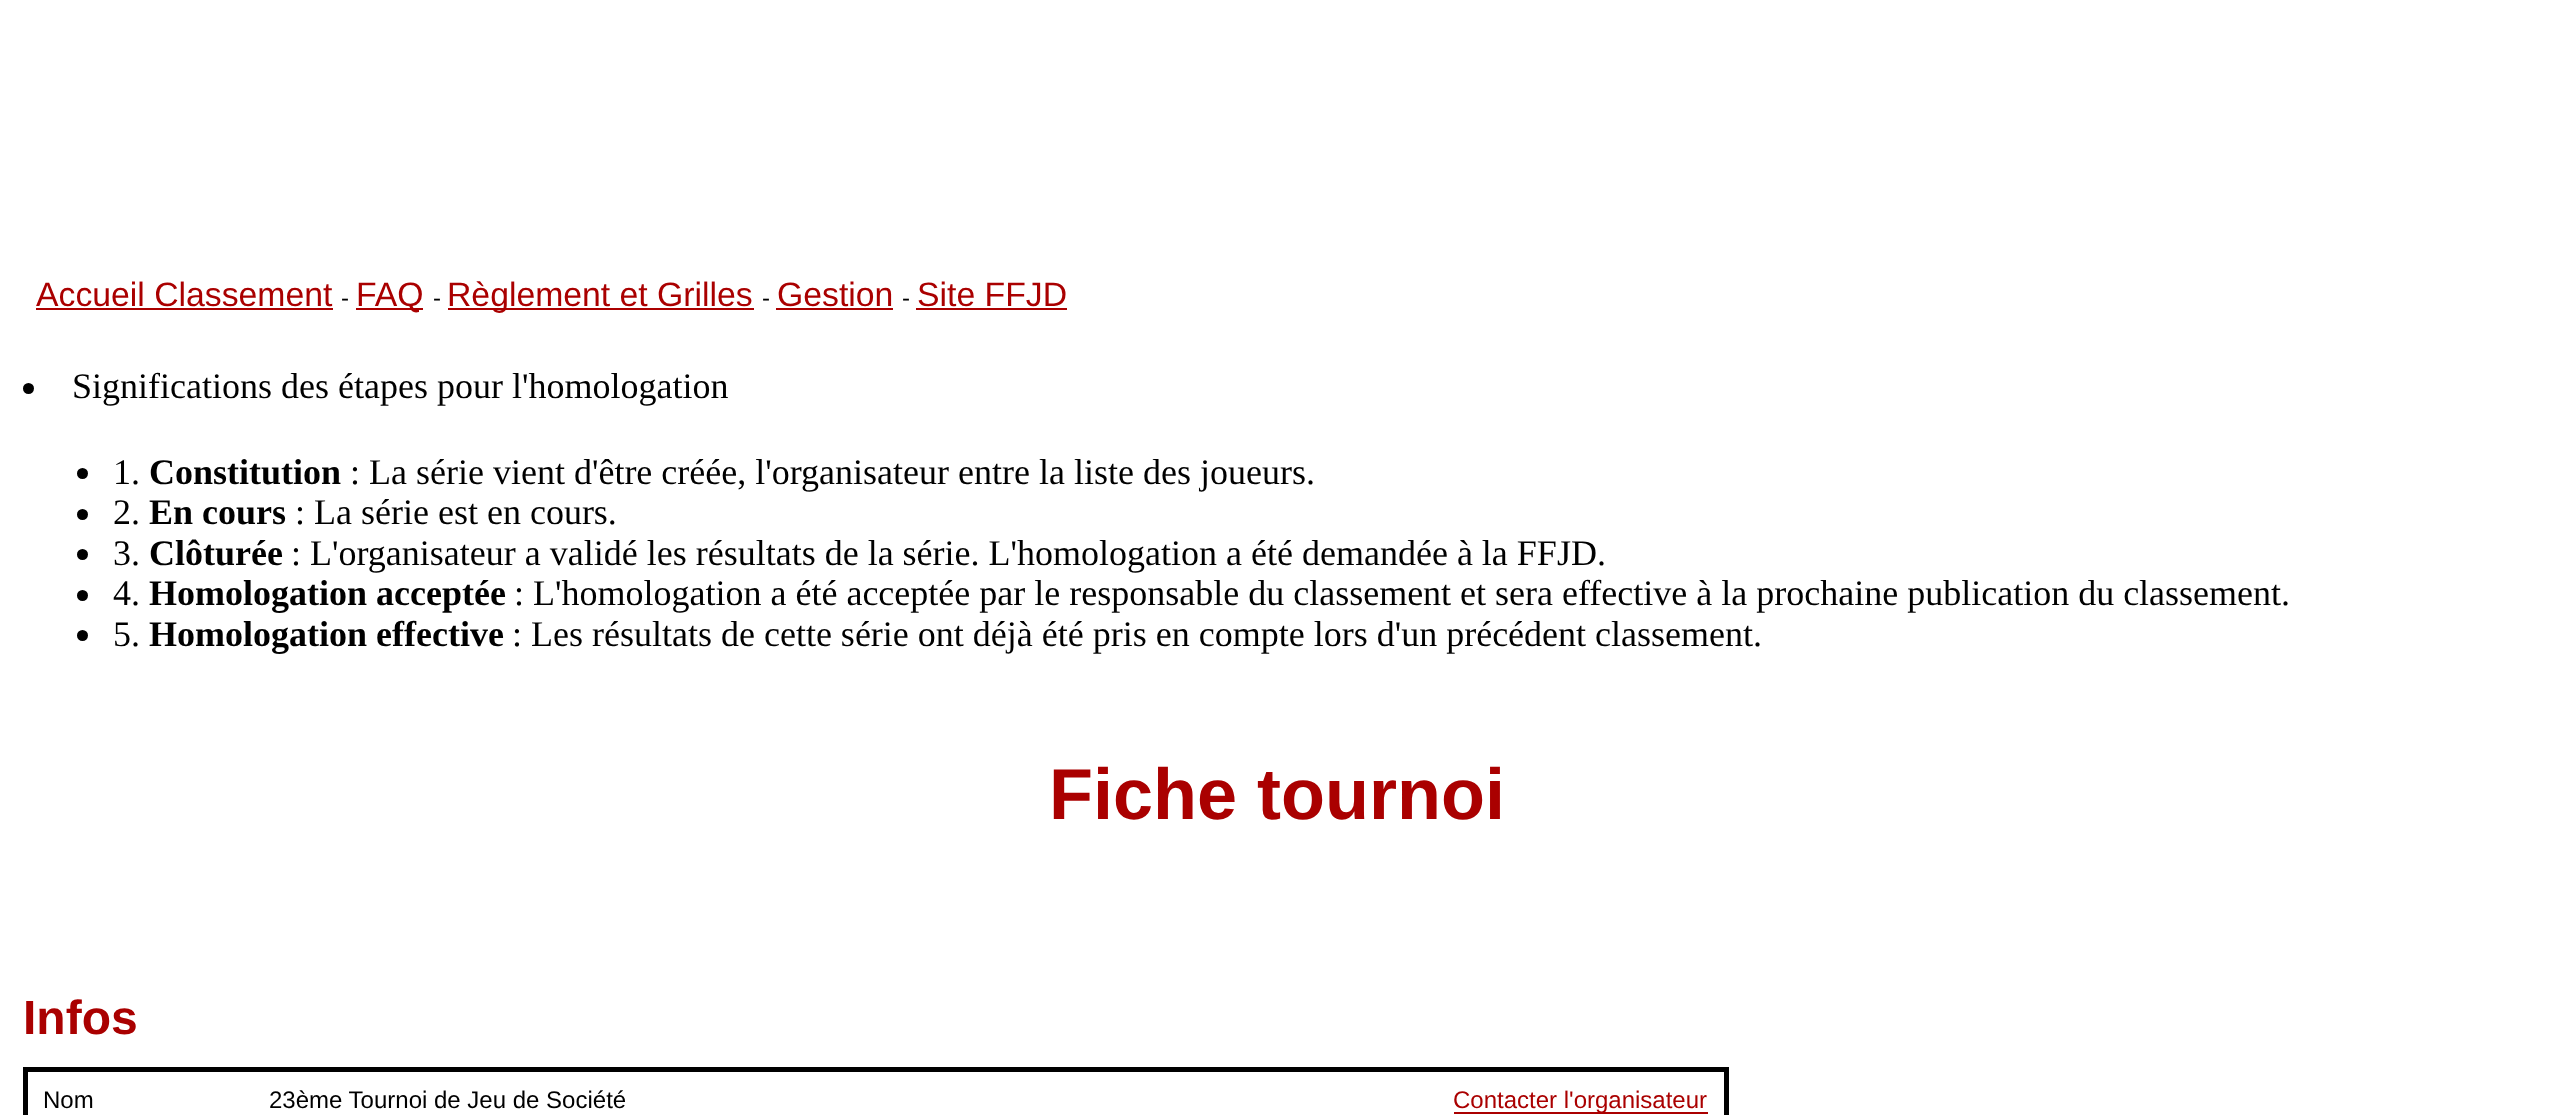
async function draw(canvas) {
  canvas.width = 2553;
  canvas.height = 1115;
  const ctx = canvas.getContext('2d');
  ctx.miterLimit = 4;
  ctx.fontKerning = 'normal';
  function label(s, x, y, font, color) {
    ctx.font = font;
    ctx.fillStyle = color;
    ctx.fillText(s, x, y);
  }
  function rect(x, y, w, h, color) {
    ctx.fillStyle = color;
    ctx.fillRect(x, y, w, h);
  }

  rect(0, 0, 2553, 1115, '#fff');
  label('Accueil Classement', 36, 306, '33.75px Liberation Sans', '#a00');
  rect(36, 308, 297, 2, '#a00');
  label('-', 341, 306, '24px Liberation Sans', '#000');
  rect(356, 308, 67, 2, '#a00');
  label('FAQ', 356, 306, '33.75px Liberation Sans', '#a00');
  label('-', 433, 306, '24px Liberation Sans', '#000');
  rect(448, 308, 306, 2, '#a00');
  label('Règlement et Grilles', 447, 306, '33.75px Liberation Sans', '#a00');
  label('-', 762, 306, '24px Liberation Sans', '#000');
  label('Gestion', 777, 306, '33.75px Liberation Sans', '#a00');
  rect(776, 308, 117, 2, '#a00');
  label('-', 902, 306, '24px Liberation Sans', '#000');
  label('Site FFJD', 917, 306, '33.75px Liberation Sans', '#a00');
  rect(916, 308, 151, 2, '#a00');
  ctx.fillStyle = '#000';
  ctx.beginPath();
  ctx.arc(28.5, 388.5, 5.5, 0, 2 * Math.PI);
  ctx.fill();
  label('Significations des étapes pour l\'homologation', 72, 398, '36px Liberation Serif', '#000');
  ctx.beginPath();
  ctx.arc(82.5, 473.5, 5.5, 0, 2 * Math.PI);
  ctx.fill();
  label('1.', 113, 484, '36px Liberation Serif', '#000');
  label('Constitution', 149, 484, 'bold 36px Liberation Serif', '#000');
  label(': La série vient d\'être créée, l\'organisateur entre la liste des joueurs.', 350, 484, '36px Liberation Serif', '#000');
  ctx.beginPath();
  ctx.arc(82.5, 514.5, 5.5, 0, 2 * Math.PI);
  ctx.fill();
  label('2.', 113, 524, '36px Liberation Serif', '#000');
  label('En cours', 149, 524, 'bold 36px Liberation Serif', '#000');
  label(': La série est en cours.', 295, 524, '36px Liberation Serif', '#000');
  ctx.beginPath();
  ctx.arc(82.5, 554.5, 5.5, 0, 2 * Math.PI);
  ctx.fill();
  label('3.', 113, 565, '36px Liberation Serif', '#000');
  label('Clôturée', 149, 565, 'bold 36px Liberation Serif', '#000');
  label(': L\'organisateur a validé les résultats de la série. L\'homologation a été demandée à la FFJD.', 291, 565, '36px Liberation Serif', '#000');
  ctx.beginPath();
  ctx.arc(82.5, 595.5, 5.5, 0, 2 * Math.PI);
  ctx.fill();
  label('4.', 113, 605, '36px Liberation Serif', '#000');
  label('Homologation acceptée', 149, 605, 'bold 36px Liberation Serif', '#000');
  label(': L\'homologation a été acceptée par le responsable du classement et sera effective à la prochaine publication du classement.', 514, 605, '36px Liberation Serif', '#000');
  ctx.beginPath();
  ctx.arc(82.5, 635.5, 5.5, 0, 2 * Math.PI);
  ctx.fill();
  label('5.', 113, 646, '36px Liberation Serif', '#000');
  label('Homologation effective', 149, 646, 'bold 36px Liberation Serif', '#000');
  label(': Les résultats de cette série ont déjà été pris en compte lors d\'un précédent classement.', 512, 646, '36px Liberation Serif', '#000');
  label('Fiche tournoi', 1049, 819, 'bold 72px Liberation Sans', '#a00');
  label('Infos', 23, 1034, 'bold 48px Liberation Sans', '#a00');
  rect(23, 1067, 1705, 5, '#000');
  rect(1724, 1067, 5, 48, '#000');
  rect(23, 1067, 5, 48, '#000');
  label('Nom', 43, 1108, '24px Liberation Sans', '#000');
  label('23ème Tournoi de Jeu de Société', 269, 1108, '24px Liberation Sans', '#000');
  rect(1454, 1112, 254, 2, '#a00');
  label('Contacter l\'organisateur', 1453, 1108, '24px Liberation Sans', '#a00');
}

draw(document.querySelector('canvas'));
